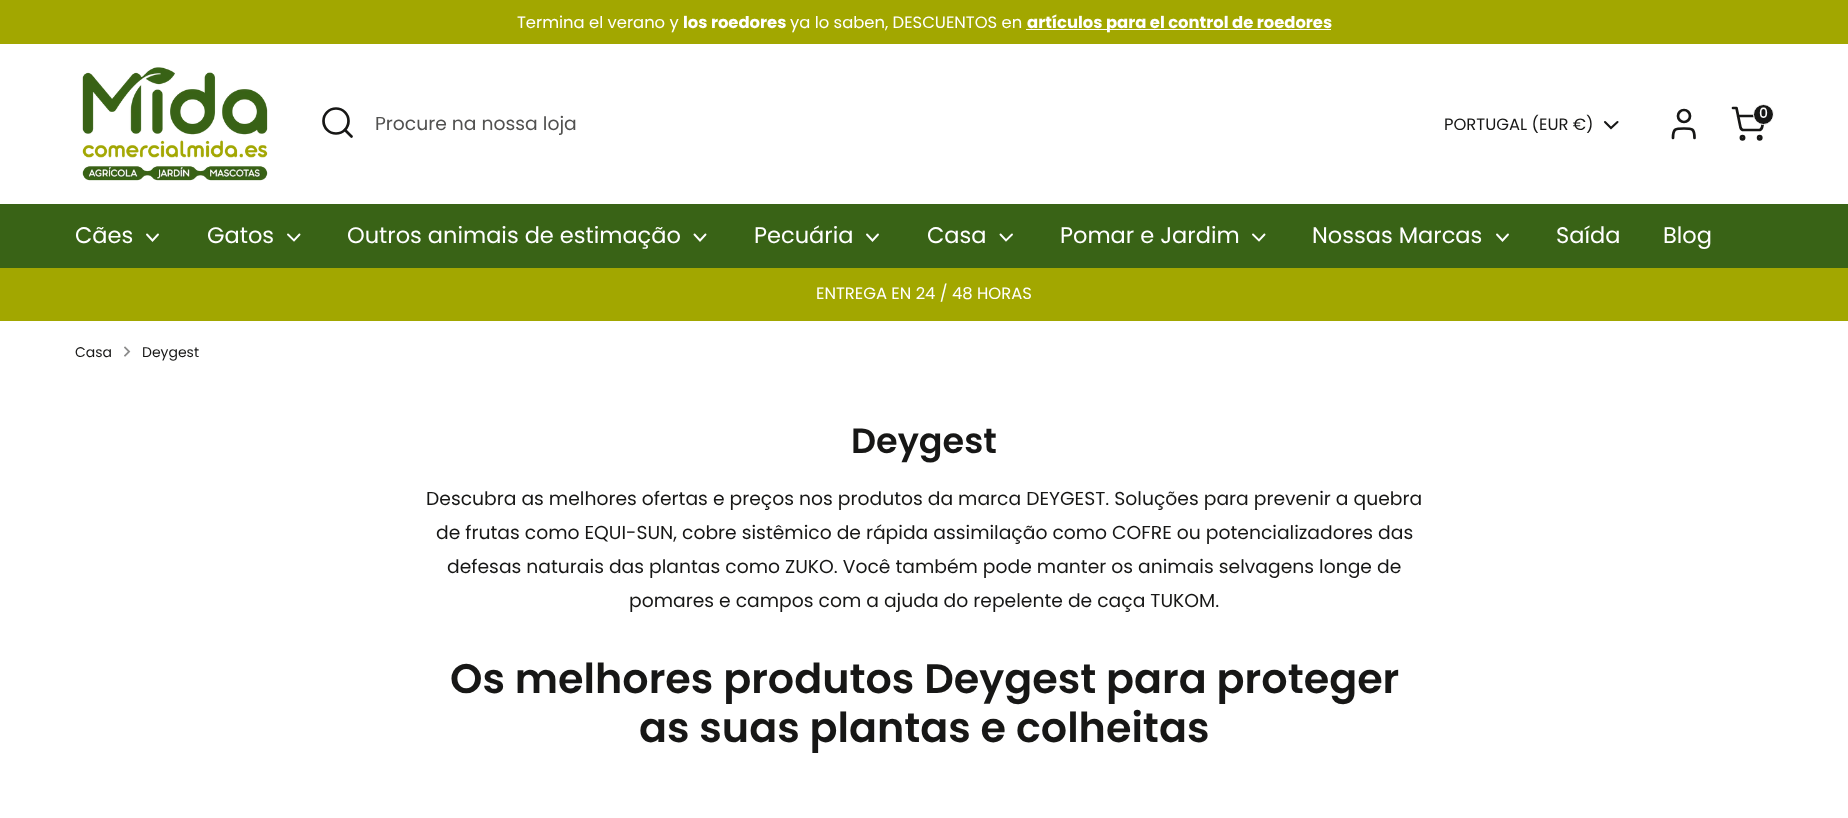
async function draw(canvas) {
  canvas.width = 1848;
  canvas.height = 818;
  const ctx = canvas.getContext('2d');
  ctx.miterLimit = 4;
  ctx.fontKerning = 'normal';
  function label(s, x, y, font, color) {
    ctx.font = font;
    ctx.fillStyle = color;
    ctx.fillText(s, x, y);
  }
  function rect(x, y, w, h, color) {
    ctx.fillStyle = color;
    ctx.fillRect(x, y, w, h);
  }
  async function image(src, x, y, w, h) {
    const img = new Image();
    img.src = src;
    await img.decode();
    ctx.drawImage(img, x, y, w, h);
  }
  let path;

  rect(0, 0, 1848, 818, '#fff');
  rect(0, 0, 1848, 44, '#a2a700');
  label('Termina el verano y', 517, 28, '16.4px Poppins', '#fff');
  label('los roedores', 683, 28, 'bold 16.4px Poppins', '#fff');
  label('ya lo saben, DESCUENTOS en', 790, 28, '16.4px Poppins', '#fff');
  rect(1026, 29, 305, 1, '#fff');
  label('artículos para el control de roedores', 1027, 28, 'bold 16.4px Poppins', '#fff');
  await image('assets/img1.png', 82, 67, 186, 114);
  ctx.beginPath();
  ctx.arc(336, 121, 12.5, 0, 2 * Math.PI);
  ctx.strokeStyle = '#171716';
  ctx.lineWidth = 2.7;
  ctx.stroke();
  path = new Path2D('M351.5 136.5L345 130');
  ctx.lineCap = 'round';
  ctx.lineJoin = 'round';
  ctx.stroke(path);
  label('Procure na nossa loja', 375, 130, '18.75px Poppins', '#515150');
  label('PORTUGAL (EUR €)', 1444, 130, '16.4px Poppins', '#171716');
  path = new Path2D('M1605 122L1611 128L1617.5 122');
  ctx.lineWidth = 2.1;
  ctx.lineJoin = 'miter';
  ctx.stroke(path);
  path = new Path2D('M1694.5 138C1694.5 128.5 1692 128.5 1684 128.5C1675.5 128.5 1673 128.5 1673 138');
  ctx.lineWidth = 2.7;
  ctx.lineJoin = 'round';
  ctx.stroke(path);
  ctx.beginPath();
  ctx.arc(1684, 116, 6, 0, 2 * Math.PI);
  ctx.stroke();
  ctx.beginPath();
  ctx.arc(1742.5, 137.8, 1.6, 0, 2 * Math.PI);
  ctx.stroke();
  ctx.beginPath();
  ctx.arc(1759.7, 137.8, 1.6, 0, 2 * Math.PI);
  ctx.stroke();
  path = new Path2D('M1733 108H1736.5L1740.5 127.5C1741 129 1742 130 1743.5 130H1759C1760.5 130 1761.5 129 1762 127.5L1764.5 116H1738');
  ctx.stroke(path);
  ctx.beginPath();
  ctx.arc(1763.5, 114.5, 10, 0, 2 * Math.PI);
  ctx.fill();
  ctx.strokeStyle = '#fff';
  ctx.lineWidth = 1;
  ctx.stroke();
  label('0', 1759, 118, '500 14px Poppins', '#fff');
  rect(0, 204, 1848, 64, '#396316');
  label('Cães', 75, 243, '22.5px Poppins', '#fff');
  path = new Path2D('M147 234.5L152.5 240.5L158 234.5');
  ctx.lineWidth = 1.9;
  ctx.lineJoin = 'miter';
  ctx.stroke(path);
  label('Gatos', 207, 243, '22.5px Poppins', '#fff');
  path = new Path2D('M288 234.5L294 240.5L299.5 234.5');
  ctx.stroke(path);
  label('Outros animais de estimação', 347, 243, '22.5px Poppins', '#fff');
  path = new Path2D('M694.5 234.5L700 240.5L705.5 234.5');
  ctx.stroke(path);
  label('Pecuária', 754, 243, '22.5px Poppins', '#fff');
  path = new Path2D('M867 234.5L872.5 240.5L878 234.5');
  ctx.stroke(path);
  label('Casa', 927, 243, '22.5px Poppins', '#fff');
  path = new Path2D('M1000.5 234.5L1006 240.5L1012 234.5');
  ctx.stroke(path);
  label('Pomar e Jardim', 1060, 243, '22.5px Poppins', '#fff');
  path = new Path2D('M1253 234.5L1259 240.5L1264.5 234.5');
  ctx.stroke(path);
  label('Nossas Marcas', 1312, 243, '22.5px Poppins', '#fff');
  path = new Path2D('M1497 234.5L1502.5 240.5L1508 234.5');
  ctx.stroke(path);
  label('Saída', 1556, 243, '22.5px Poppins', '#fff');
  label('Blog', 1663, 243, '22.5px Poppins', '#fff');
  rect(0, 268, 1848, 53, '#a2a700');
  label('ENTREGA EN 24 / 48 HORAS', 816, 299, '16.4px Poppins', '#fff');
  label('Casa', 75, 357, '14px Poppins', '#171716');
  await image('assets/img2.png', 124, 346, 7, 11);
  label('Deygest', 142, 357, '14px Poppins', '#171716');
  label('Deygest', 851, 453, '600 35px Poppins', '#171716');
  label('Descubra as melhores ofertas e preços nos produtos da marca DEYGEST. Soluções para prevenir a quebra', 426, 505, '18.75px Poppins', '#171716');
  label('de frutas como EQUI-SUN, cobre sistêmico de rápida assimilação como COFRE ou potencializadores das', 436, 539, '18.75px Poppins', '#171716');
  label('defesas naturais das plantas como ZUKO. Você também pode manter os animais selvagens longe de', 447, 573, '18.75px Poppins', '#171716');
  label('pomares e campos com a ajuda do repelente de caça TUKOM.', 629, 607, '18.75px Poppins', '#171716');
  label('Os melhores produtos Deygest para proteger', 450, 693, '600 41.3px Poppins', '#171716');
  label('as suas plantas e colheitas', 639, 742, '600 41.3px Poppins', '#171716');
}

draw(document.querySelector('canvas'));
